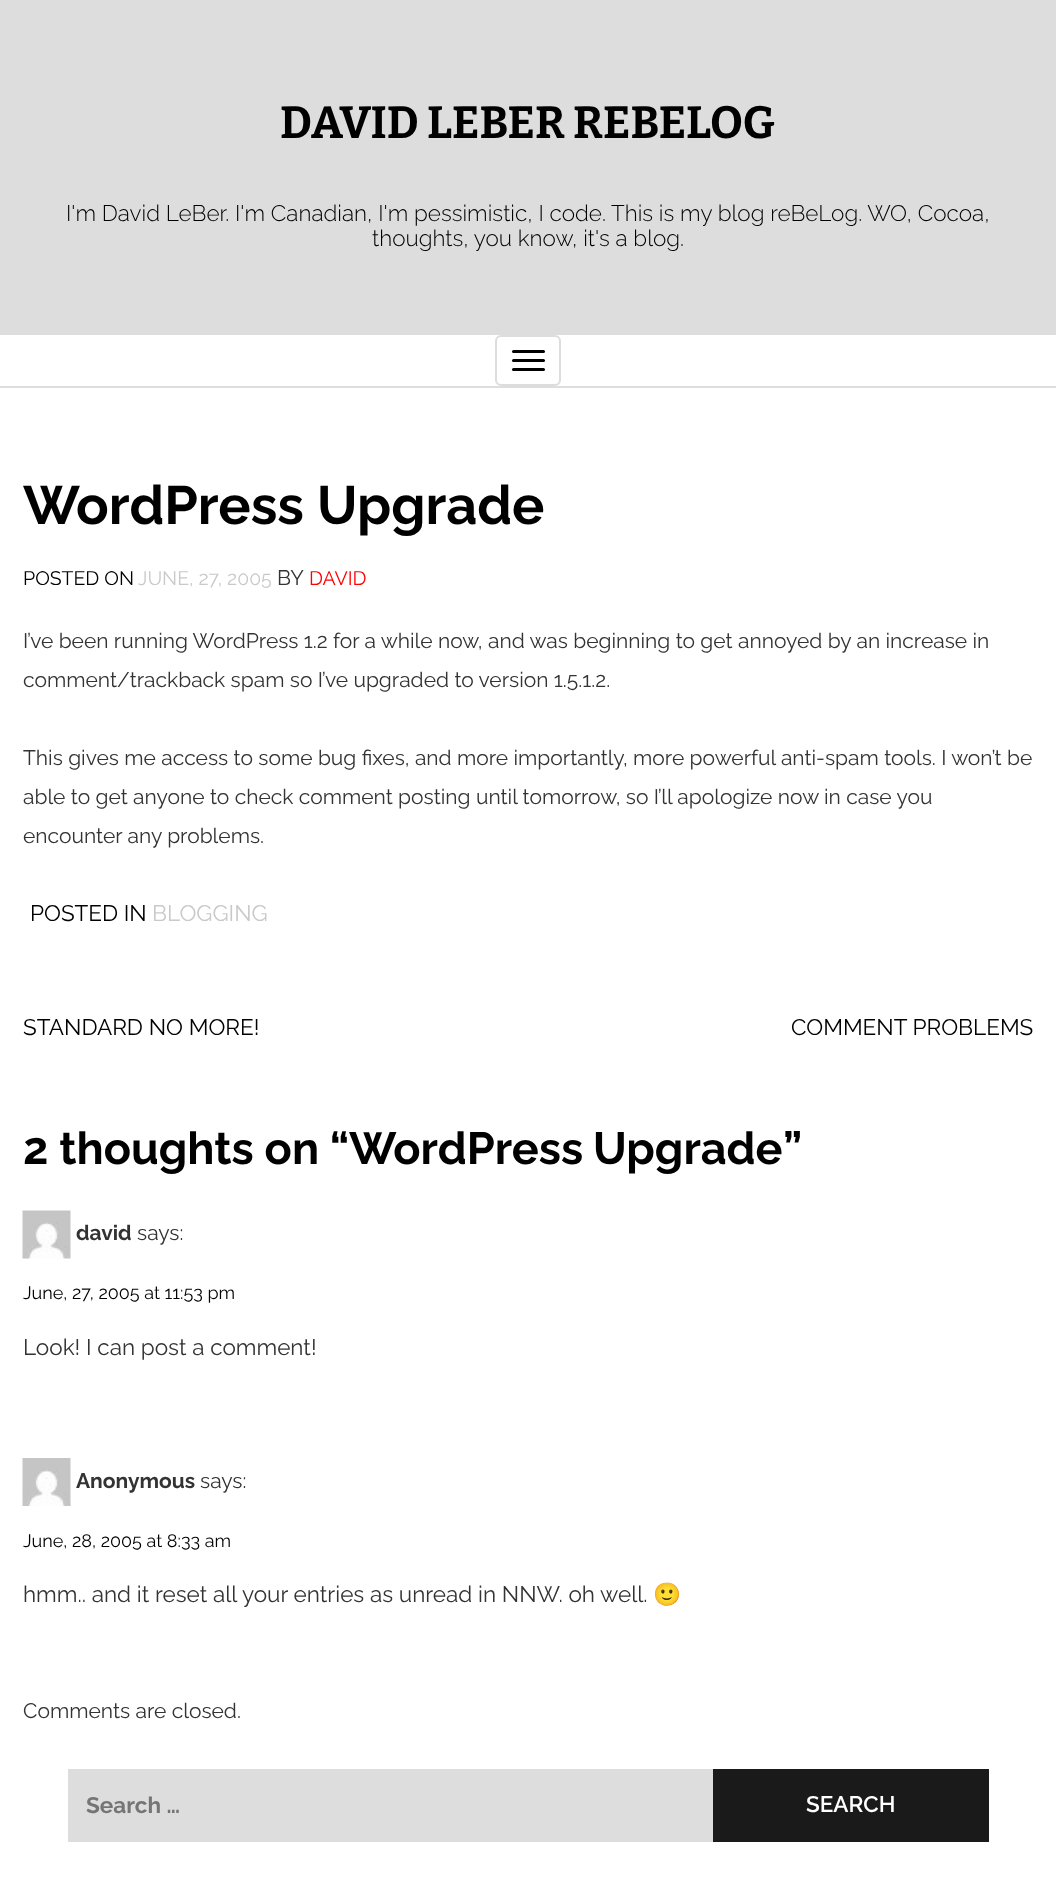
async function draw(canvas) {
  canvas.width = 1056;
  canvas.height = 1886;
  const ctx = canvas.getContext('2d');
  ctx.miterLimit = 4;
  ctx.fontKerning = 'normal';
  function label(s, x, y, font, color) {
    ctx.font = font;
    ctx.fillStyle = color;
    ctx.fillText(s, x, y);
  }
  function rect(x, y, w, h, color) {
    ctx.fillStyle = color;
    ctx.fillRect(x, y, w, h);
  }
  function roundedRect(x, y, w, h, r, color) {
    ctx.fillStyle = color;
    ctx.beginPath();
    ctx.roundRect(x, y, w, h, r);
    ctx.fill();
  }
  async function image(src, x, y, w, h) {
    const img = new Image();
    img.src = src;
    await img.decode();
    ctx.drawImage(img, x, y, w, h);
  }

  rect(0, 0, 1056, 1886, '#fff');
  rect(0, 0, 1056, 335, '#ddd');
  label('DAVID LEBER REBELOG', 280, 138, 'bold 45px Bitter', '#000');
  label('I\'m David LeBer. I\'m Canadian, I\'m pessimistic, I code. This is my blog reBeLog. WO, Cocoa,', 66, 221, '300 22.5px Raleway', '#000');
  label('thoughts, you know, it\'s a blog.', 372, 246, '300 22.5px Raleway', '#000');
  rect(0, 386, 1056, 2, '#ddd');
  ctx.beginPath();
  ctx.roundRect(496, 336, 64, 49, 5);
  ctx.strokeStyle = '#ddd';
  ctx.lineWidth = 2;
  ctx.stroke();
  roundedRect(512, 350, 33, 3, 1.5, '#000');
  roundedRect(512, 359, 33, 3, 1.5, '#000');
  roundedRect(512, 368, 33, 3, 1.5, '#000');
  label('WordPress Upgrade', 23, 524, 'bold 54px Raleway', '#000');
  label('POSTED ON', 23, 585, '19.5px Raleway', '#000');
  label('JUNE, 27, 2005', 138, 585, '19.5px Raleway', '#c9c9c9');
  label('BY', 277, 585, '21px Raleway', '#333');
  label('DAVID', 309, 585, '19.5px Raleway', '#f00');
  label('I’ve been running WordPress 1.2 for a while now, and was beginning to get annoyed by an increase in', 23, 648, '21px Raleway', '#333');
  label('comment/trackback spam so I’ve upgraded to version 1.5.1.2.', 23, 687, '21px Raleway', '#333');
  label('This gives me access to some bug fixes, and more importantly, more powerful anti-spam tools. I won’t be', 23, 765, '21px Raleway', '#333');
  label('able to get anyone to check comment posting until tomorrow, so I’ll apologize now in case you', 23, 804, '21px Raleway', '#333');
  label('encounter any problems.', 23, 843, '21px Raleway', '#333');
  label('POSTED IN', 30, 921, '22.5px Raleway', '#000');
  label('BLOGGING', 152, 921, '22.5px Raleway', '#c9c9c9');
  label('STANDARD NO MORE!', 23, 1035, '22.5px Raleway', '#000');
  label('COMMENT PROBLEMS', 791, 1035, '22.5px Raleway', '#000');
  label('2 thoughts on “', 23, 1164, 'bold 45px Raleway', '#000');
  ctx.wordSpacing = '-1px';
  label('WordPress Upgrade', 349, 1164, 'bold 45px Raleway', '#000');
  ctx.wordSpacing = '0px';
  label('”', 783, 1164, 'bold 45px Raleway', '#000');
  await image('assets/img1.png', 22, 1210, 49, 49);
  label('david', 76, 1240, 'bold 21px Raleway', '#333');
  label('says:', 137, 1240, '21px Raleway', '#333');
  label('June, 27, 2005 at 11:53 pm', 23, 1299, '18px Raleway', '#000');
  label('Look! I can post a comment!', 23, 1355, '22.5px Raleway', '#333');
  await image('assets/img2.png', 22, 1458, 49, 48);
  label('Anonymous', 76, 1488, 'bold 21px Raleway', '#333');
  label('says:', 200, 1488, '21px Raleway', '#333');
  label('June, 28, 2005 at 8:33 am', 23, 1547, '18px Raleway', '#000');
  label('hmm.. and it reset all your entries as unread in NNW. oh well.', 23, 1602, '22.5px Raleway', '#333');
  label('🙂', 653, 1602, '22.5px Noto Color Emoji', '#333');
  label('Comments are closed.', 23, 1718, '21px Raleway', '#333');
  rect(68, 1769, 645, 73, '#ddd');
  label('Search …', 86, 1813, 'bold 22.5px Raleway', '#757575');
  rect(713, 1769, 276, 73, '#1a1a1a');
  label('SEARCH', 806, 1812, '600 22.5px Raleway', '#fff');
}

draw(document.querySelector('canvas'));
